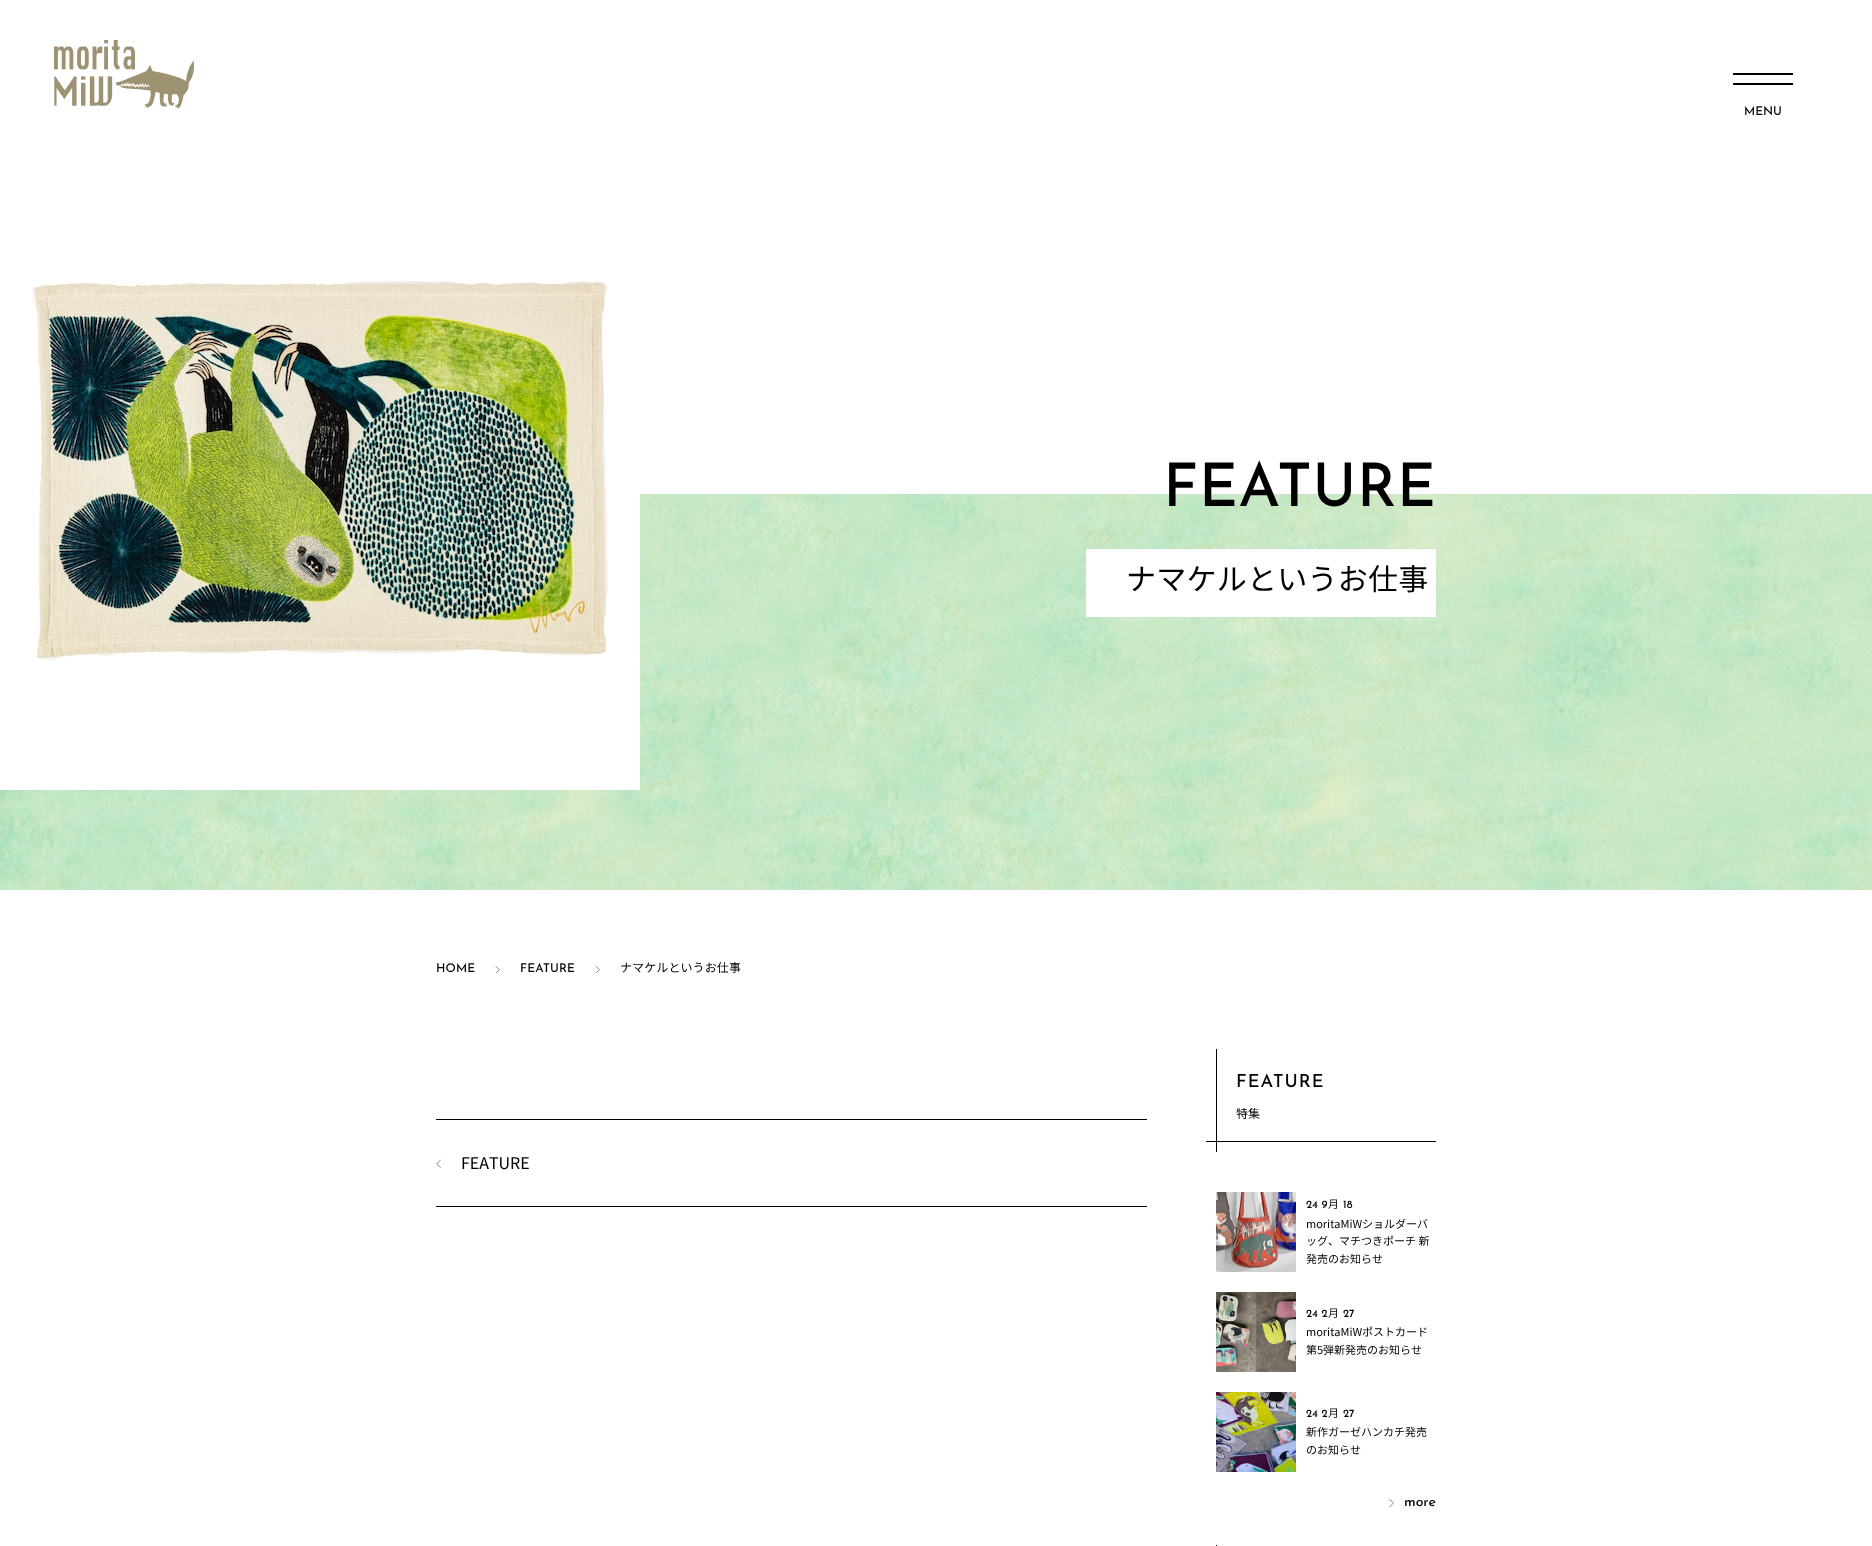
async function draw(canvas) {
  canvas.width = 1872;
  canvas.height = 1546;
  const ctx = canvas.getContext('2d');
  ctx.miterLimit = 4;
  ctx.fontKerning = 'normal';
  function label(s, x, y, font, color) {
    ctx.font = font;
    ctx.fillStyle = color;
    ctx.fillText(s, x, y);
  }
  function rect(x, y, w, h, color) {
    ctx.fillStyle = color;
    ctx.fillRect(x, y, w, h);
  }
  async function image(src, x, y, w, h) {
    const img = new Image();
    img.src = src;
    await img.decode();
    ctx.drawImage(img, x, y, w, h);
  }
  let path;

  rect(0, 0, 1872, 1546, '#fff');
  await image('assets/img1.png', 54, 40, 140, 69);
  rect(1733, 73, 60, 2, '#000');
  rect(1733, 83, 60, 2, '#000');
  label('MENU', 1744, 115, '500 12px Josefin Sans', '#000');
  await image('assets/img3.png', 0, 494, 1872, 396);
  await image('assets/img2.png', 0, 281, 640, 509);
  ctx.letterSpacing = '0.25px';
  label('FEATURE', 1163, 506, '500 60px Josefin Sans', '#000');
  rect(1086, 549, 350, 68, '#fff');
  label('ナマケルというお仕事', 1126, 590, '30px Noto Sans JP', '#000');
  ctx.letterSpacing = '0.1px';
  label('HOME', 436, 972, '500 12px Josefin Sans', '#000');
  ctx.save();
  ctx.beginPath();
  ctx.rect(495, 966, 5, 7);
  ctx.clip();
  path = new Path2D('M495.5 966L499.5 969.5L495.5 973.5');
  ctx.strokeStyle = '#707070';
  ctx.lineWidth = 0.8;
  ctx.lineCap = 'round';
  ctx.lineJoin = 'round';
  ctx.stroke(path);
  ctx.restore();
  label('FEATURE', 520, 972, '500 12px Josefin Sans', '#000');
  ctx.save();
  ctx.beginPath();
  ctx.rect(595, 966, 5, 7);
  ctx.clip();
  path = new Path2D('M595.5 966L599.5 969.5L595.5 973.5');
  ctx.strokeStyle = '#707070';
  ctx.lineWidth = 0.8;
  ctx.lineCap = 'round';
  ctx.lineJoin = 'round';
  ctx.stroke(path);
  ctx.restore();
  label('ナマケルというお仕事', 620, 972, '12px Noto Sans JP', '#000');
  rect(436, 1119, 711, 1, '#000');
  rect(436, 1206, 711, 1, '#000');
  path = new Path2D('M440.5 1167.5L436.5 1164L440.5 1160');
  ctx.strokeStyle = '#707070';
  ctx.lineWidth = 0.8;
  ctx.lineCap = 'round';
  ctx.lineJoin = 'round';
  ctx.stroke(path);
  ctx.letterSpacing = '0px';
  label('FEATURE', 461, 1169, '16px Noto Sans JP', '#000');
  rect(1216, 1049, 1, 103, '#000');
  ctx.letterSpacing = '1px';
  label('FEATURE', 1236, 1087, '500 18px Josefin Sans', '#000');
  ctx.letterSpacing = '0.1px';
  label('特集', 1236, 1118, '12px Noto Sans JP', '#000');
  rect(1206, 1141, 230, 1, '#000');
  await image('assets/img4.png', 1216, 1192, 80, 80);
  ctx.letterSpacing = '0px';
  label('24 9', 1306, 1208, '500 11px Josefin Sans', '#000');
  label('月', 1328, 1208, '11px Noto Sans JP', '#000');
  label('18', 1343, 1208, '500 11px Josefin Sans', '#000');
  label('moritaMiWショルダーバ', 1306, 1228, '11px Noto Sans JP', '#000');
  label('ッグ、マチつきポーチ 新', 1306, 1245, '11px Noto Sans JP', '#000');
  label('発売のお知らせ', 1306, 1263, '11px Noto Sans JP', '#000');
  await image('assets/img5.png', 1216, 1292, 80, 80);
  label('24 2', 1306, 1317, '500 11px Josefin Sans', '#000');
  label('月', 1328, 1317, '11px Noto Sans JP', '#000');
  label('27', 1343, 1317, '500 11px Josefin Sans', '#000');
  label('moritaMiWポストカード', 1306, 1336, '11px Noto Sans JP', '#000');
  label('第5弾新発売のお知らせ', 1306, 1354, '11px Noto Sans JP', '#000');
  await image('assets/img6.png', 1216, 1392, 80, 80);
  label('24 2', 1306, 1417, '500 11px Josefin Sans', '#000');
  label('月', 1328, 1417, '11px Noto Sans JP', '#000');
  label('27', 1343, 1417, '500 11px Josefin Sans', '#000');
  label('新作ガーゼハンカチ発売', 1306, 1436, '11px Noto Sans JP', '#000');
  label('のお知らせ', 1306, 1454, '11px Noto Sans JP', '#000');
  path = new Path2D('M1389.5 1499.5L1393.5 1503L1389.5 1507');
  ctx.stroke(path);
  label('more', 1404, 1506, '500 14px Josefin Sans', '#000');
  rect(1216, 1545, 1, 1, '#000');
}

draw(document.querySelector('canvas'));
